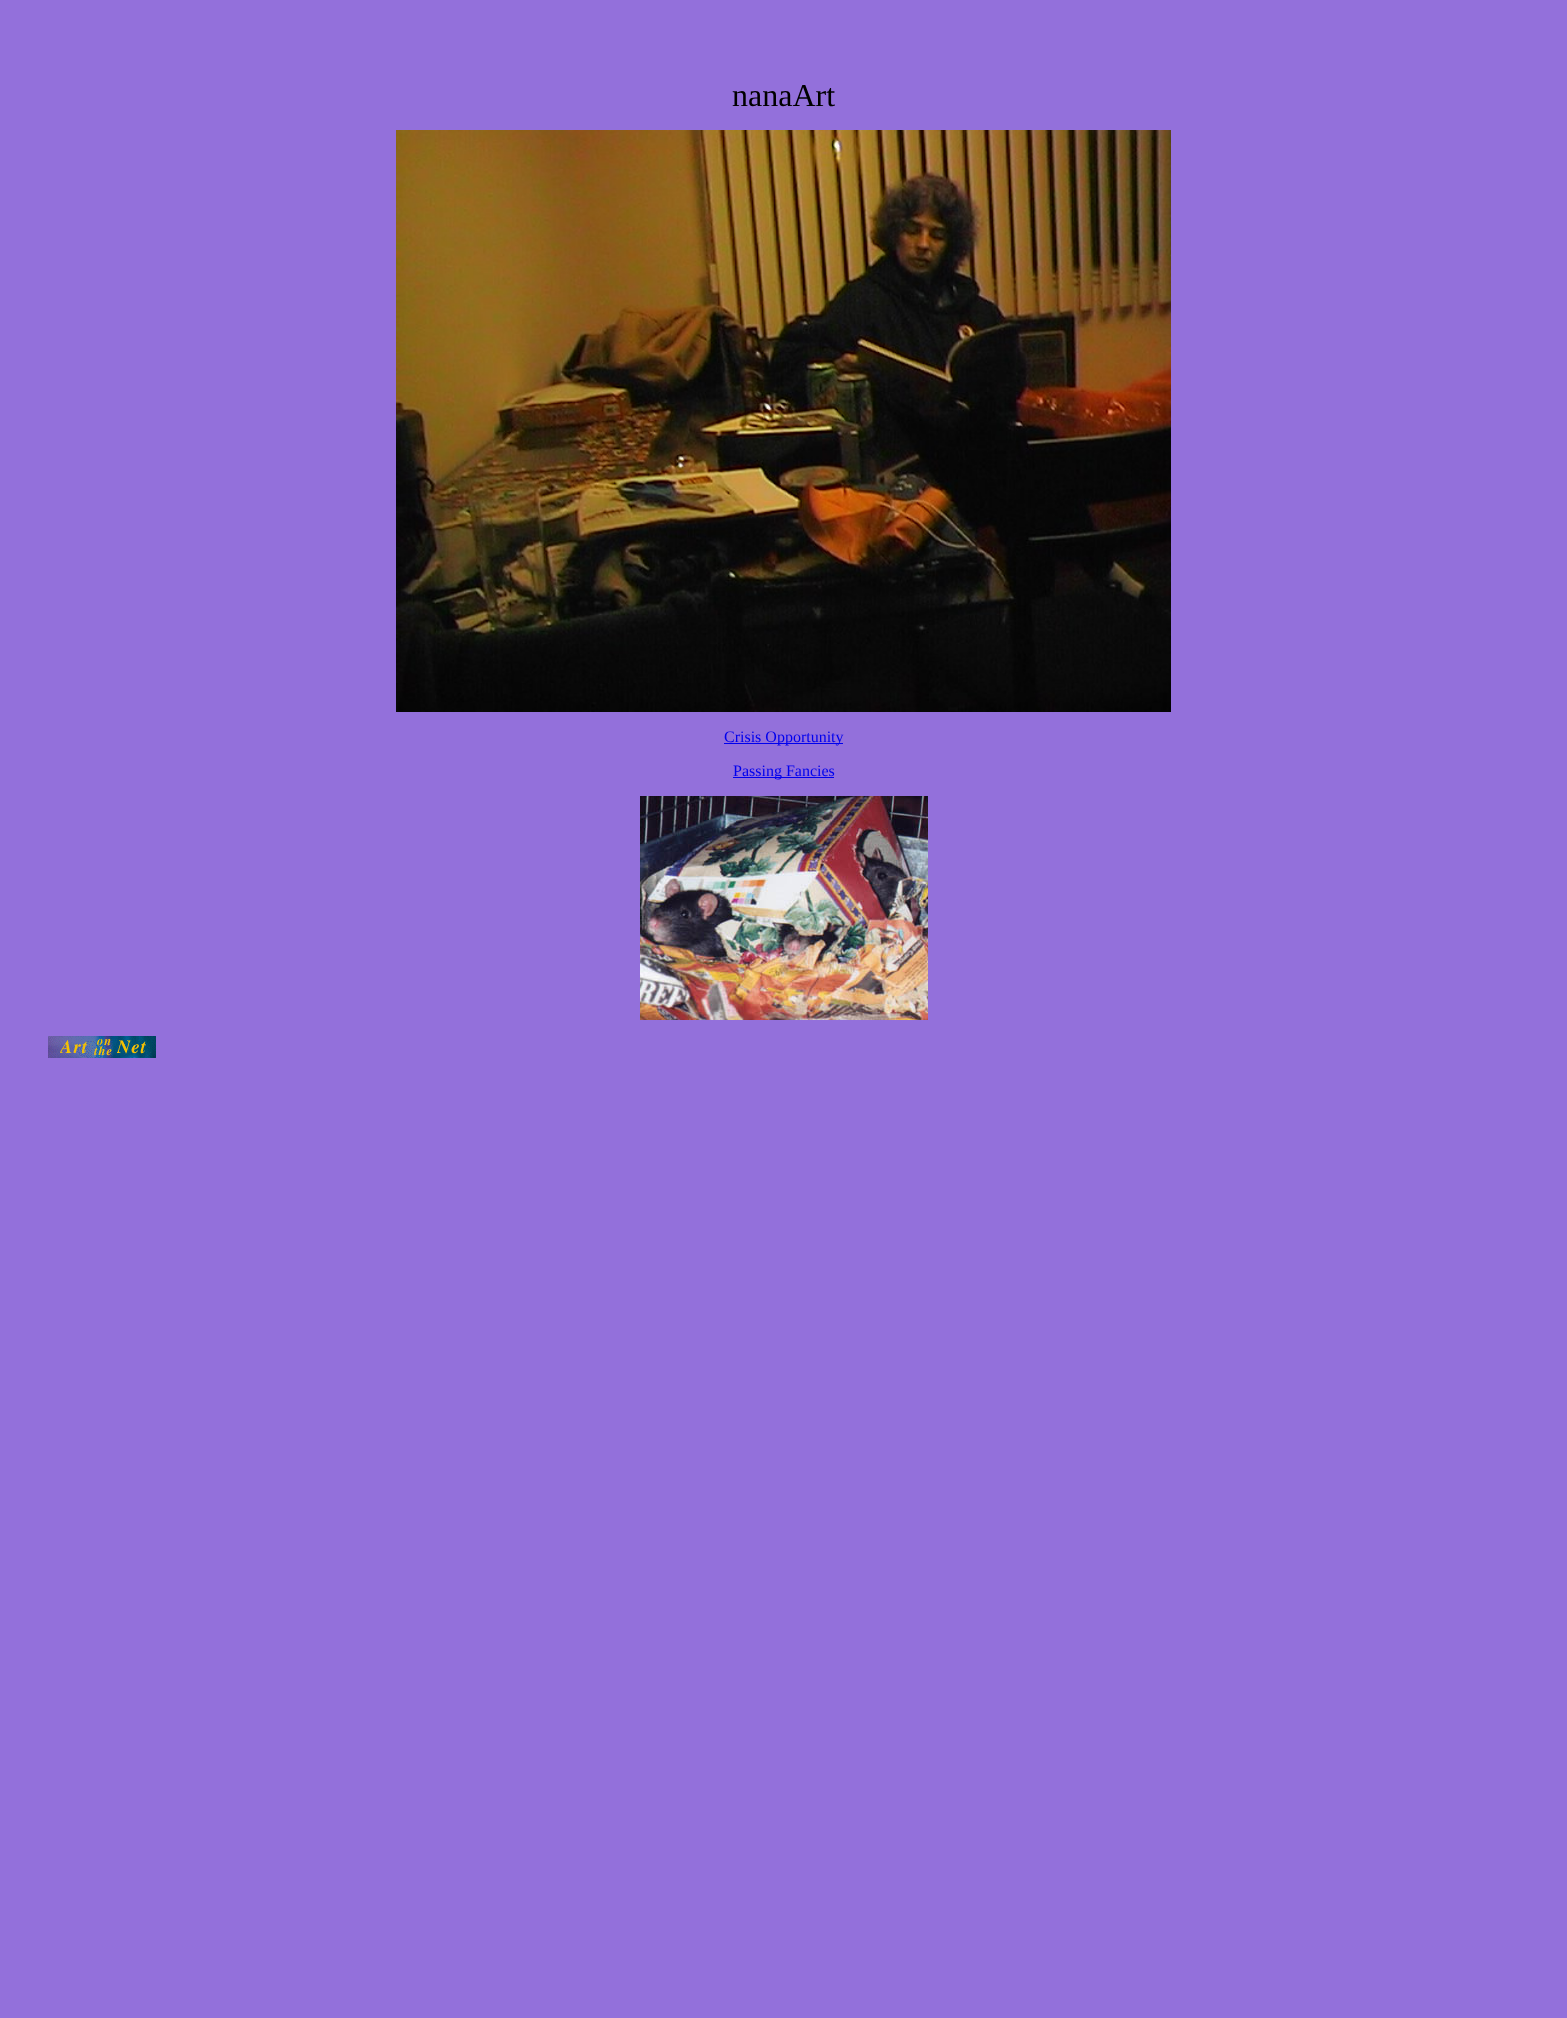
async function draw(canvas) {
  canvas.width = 1567;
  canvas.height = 2018;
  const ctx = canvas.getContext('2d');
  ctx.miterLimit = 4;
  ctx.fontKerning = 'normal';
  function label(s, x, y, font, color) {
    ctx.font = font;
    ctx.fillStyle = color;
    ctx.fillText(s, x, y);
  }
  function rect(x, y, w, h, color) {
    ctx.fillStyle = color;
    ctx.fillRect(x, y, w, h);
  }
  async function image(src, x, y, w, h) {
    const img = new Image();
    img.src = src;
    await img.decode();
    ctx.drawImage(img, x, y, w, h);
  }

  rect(0, 0, 1567, 2018, '#9370db');
  label('nanaArt', 732, 106, '32px Liberation Serif', '#000');
  await image('assets/img1.png', 396, 130, 775, 582);
  rect(724, 743, 119, 1, '#00e');
  label('Crisis Opportunity', 724, 742, '16px Liberation Serif', '#00e');
  rect(733, 777, 101, 1, '#00e');
  label('Passing Fancies', 733, 776, '16px Liberation Serif', '#00e');
  await image('assets/img2.png', 640, 796, 288, 224);
  await image('assets/img3.png', 48, 1036, 108, 22);
}

draw(document.querySelector('canvas'));
